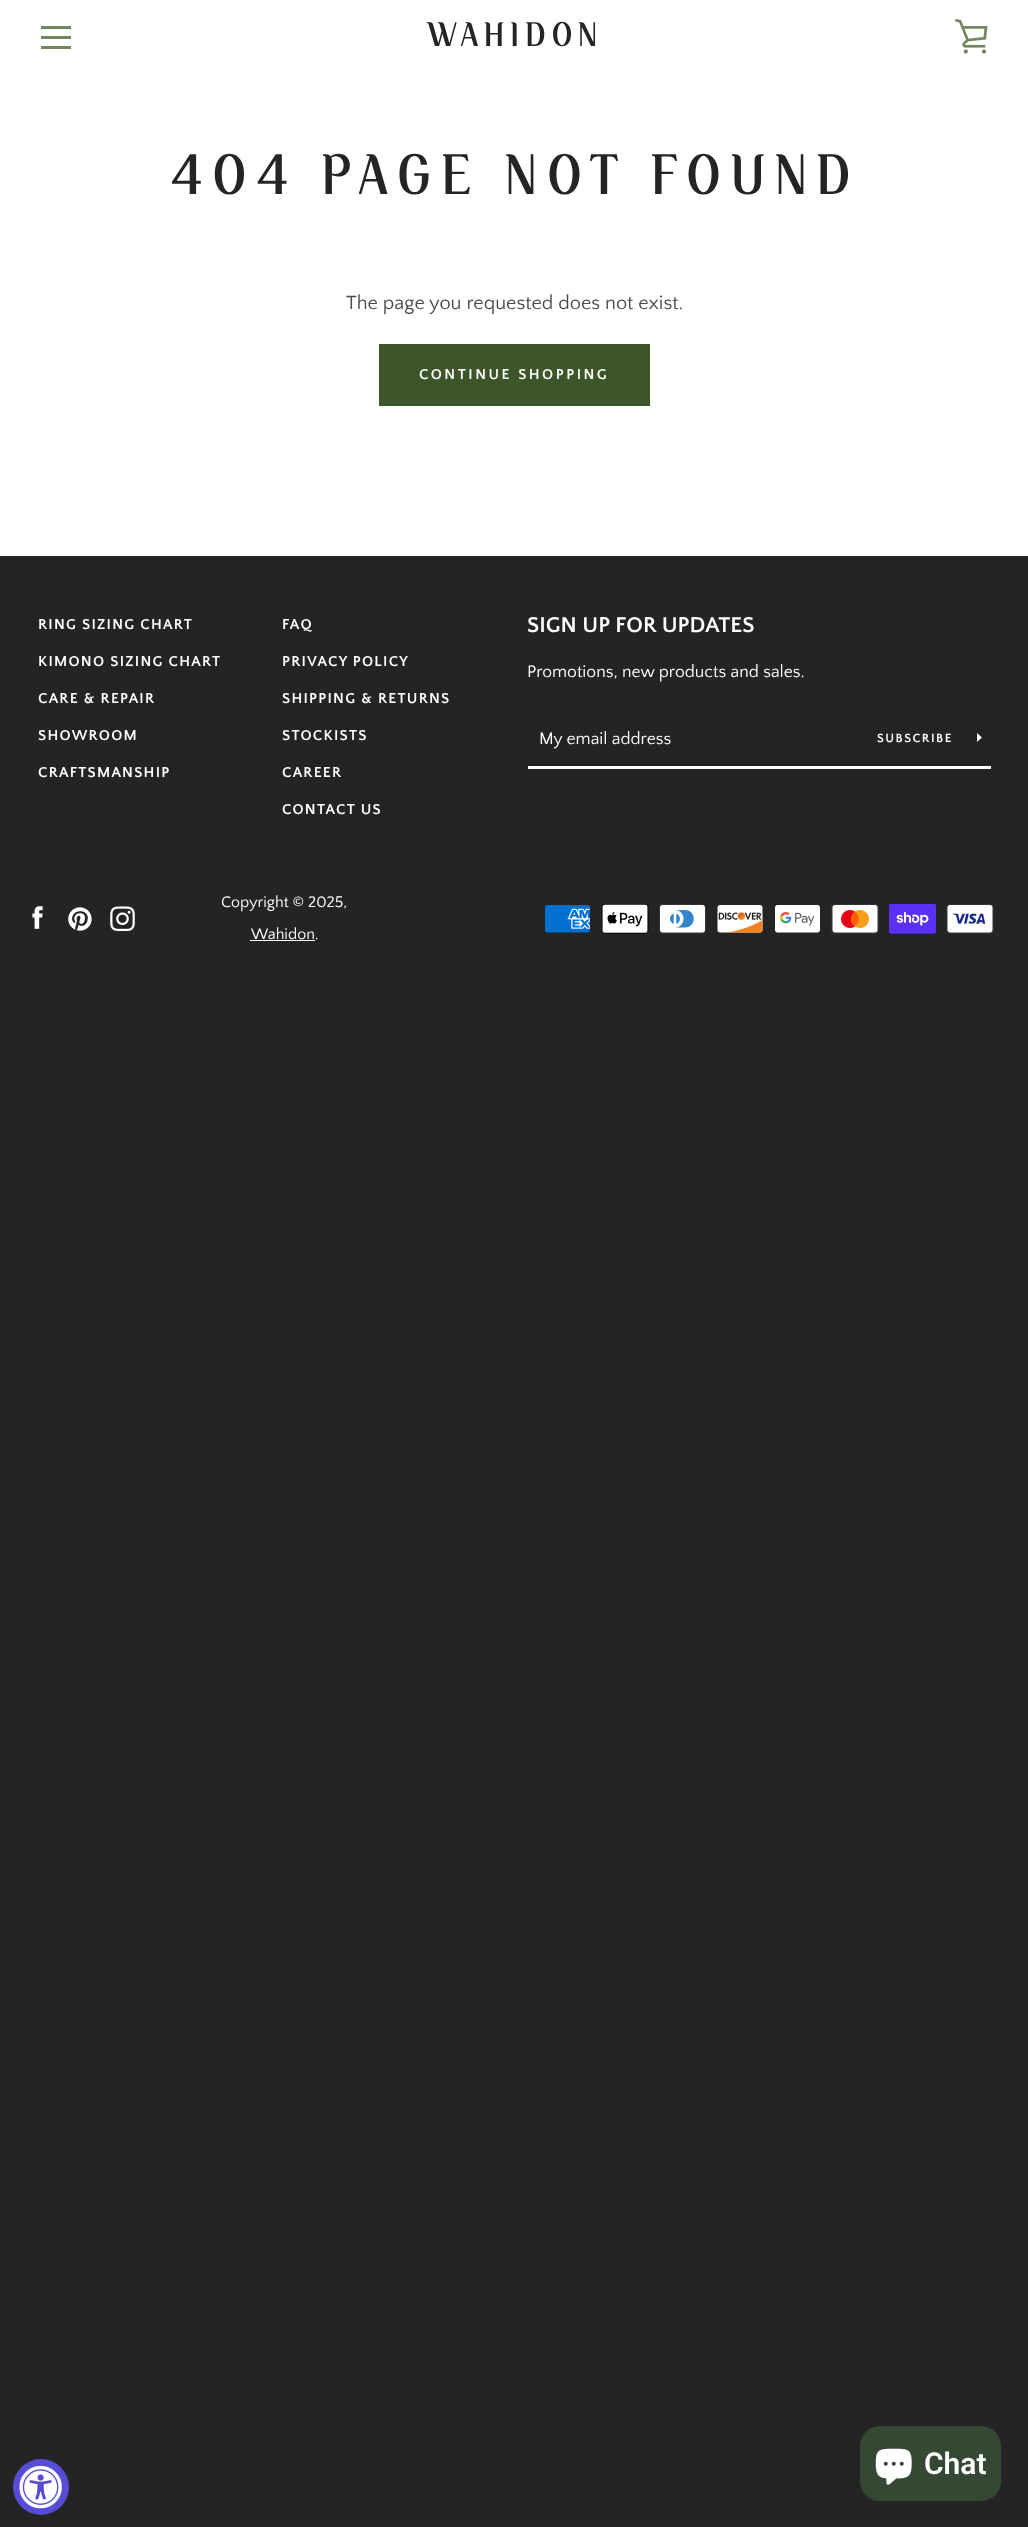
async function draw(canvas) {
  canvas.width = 1028;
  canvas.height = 2527;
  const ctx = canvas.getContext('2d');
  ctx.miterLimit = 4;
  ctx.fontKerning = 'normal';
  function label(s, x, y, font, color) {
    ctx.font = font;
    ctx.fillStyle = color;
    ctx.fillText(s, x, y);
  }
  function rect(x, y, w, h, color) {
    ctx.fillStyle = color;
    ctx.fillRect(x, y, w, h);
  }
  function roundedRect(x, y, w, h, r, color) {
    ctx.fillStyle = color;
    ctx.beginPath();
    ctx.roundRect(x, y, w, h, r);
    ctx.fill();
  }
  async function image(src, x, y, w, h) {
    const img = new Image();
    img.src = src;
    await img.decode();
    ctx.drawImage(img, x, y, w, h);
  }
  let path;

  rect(0, 0, 1028, 2527, '#242424');
  rect(0, 0, 1028, 556, '#fff');
  rect(41, 26, 30, 3, '#758560');
  rect(41, 36, 30, 3, '#758560');
  rect(41, 46, 30, 3, '#758560');
  ctx.letterSpacing = '6px';
  label('WAHIDON', 426, 46, 'bold 30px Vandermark', '#242424');
  await image('assets/img1.png', 955, 18, 33, 36);
  ctx.letterSpacing = '10px';
  label('404 PAGE NOT FOUND', 170, 194, 'bold 50px Vandermark', '#242424');
  ctx.letterSpacing = '0px';
  label('The page you requested does not exist.', 346, 309, '20px Quattrocento Sans', '#4a4a4a');
  rect(379, 344, 271, 62, '#3c5629');
  ctx.letterSpacing = '2.5px';
  label('CONTINUE SHOPPING', 419, 379, 'bold 15px Quattrocento Sans', '#fff');
  ctx.letterSpacing = '1.25px';
  label('RING SIZING CHART', 38, 629, 'bold 15px Quattrocento Sans', '#fff');
  label('KIMONO SIZING CHART', 38, 666, 'bold 15px Quattrocento Sans', '#fff');
  label('CARE & REPAIR', 38, 703, 'bold 15px Quattrocento Sans', '#fff');
  label('SHOWROOM', 38, 740, 'bold 15px Quattrocento Sans', '#fff');
  label('CRAFTSMANSHIP', 38, 777, 'bold 15px Quattrocento Sans', '#fff');
  label('FAQ', 282, 629, 'bold 15px Quattrocento Sans', '#fff');
  label('PRIVACY POLICY', 282, 666, 'bold 15px Quattrocento Sans', '#fff');
  label('SHIPPING & RETURNS', 282, 703, 'bold 15px Quattrocento Sans', '#fff');
  label('STOCKISTS', 282, 740, 'bold 15px Quattrocento Sans', '#fff');
  label('CAREER', 282, 777, 'bold 15px Quattrocento Sans', '#fff');
  label('CONTACT US', 282, 814, 'bold 15px Quattrocento Sans', '#fff');
  ctx.letterSpacing = '0px';
  label('SIGN UP FOR UPDATES', 527, 632, 'bold 22.5px Quattrocento Sans', '#fff');
  label('Promotions, new products and sales.', 527, 677, '17.5px Quattrocento Sans', '#fff');
  rect(528, 766, 463, 3, '#fff');
  label('My email address', 539, 744, '17.5px Quattrocento Sans', '#fff');
  ctx.letterSpacing = '1.5px';
  label('SUBSCRIBE', 877, 742, 'bold 12.5px Quattrocento Sans', '#fff');
  path = new Path2D('M982 737.5L977 742V733Z');
  ctx.fill(path);
  await image('assets/img2.png', 32, 906, 11, 23);
  await image('assets/img3.png', 68, 907, 24, 24);
  await image('assets/img4.png', 110, 906, 25, 25);
  ctx.letterSpacing = '0px';
  label('Copyright © 2025,', 221, 907, '16px Quattrocento Sans', '#fff');
  label('Wahidon.', 251, 939, '16px Quattrocento Sans', '#fff');
  rect(250, 940, 65, 1, '#fff');
  await image('assets/img5.png', 545, 905, 45, 28);
  await image('assets/img6.png', 601, 904, 48, 30);
  await image('assets/img7.png', 659, 904, 47, 30);
  await image('assets/img8.png', 717, 905, 46, 28);
  await image('assets/img9.png', 775, 905, 45, 28);
  await image('assets/img10.png', 831, 904, 48, 30);
  await image('assets/img11.png', 889, 904, 47, 30);
  await image('assets/img12.png', 946, 904, 48, 30);
  ctx.fillStyle = '#574cd5';
  ctx.beginPath();
  ctx.arc(41, 2487, 28, 0, 2 * Math.PI);
  ctx.fill();
  await image('assets/img13.png', 19, 2465, 43, 44);
  roundedRect(860, 2426, 141, 75, 20, '#344834');
  await image('assets/img14.png', 875, 2448, 37, 37);
  label('Chat', 924, 2474, '600 30px Roboto', '#fff');
}

draw(document.querySelector('canvas'));
